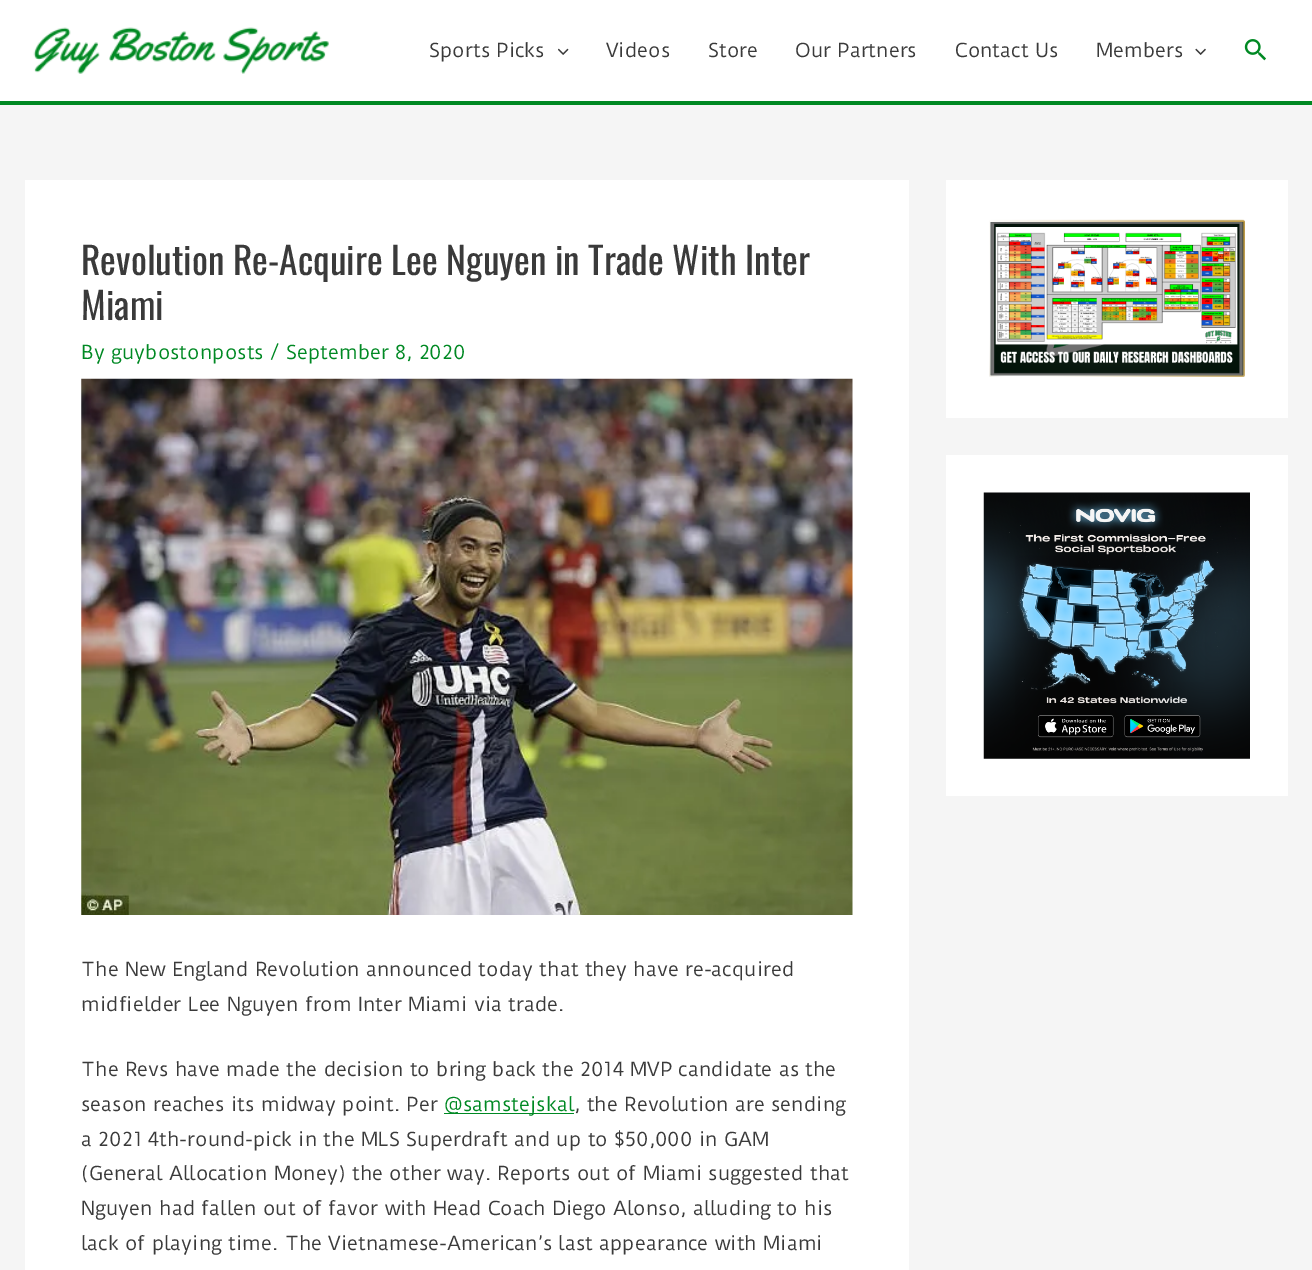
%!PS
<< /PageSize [1312 1270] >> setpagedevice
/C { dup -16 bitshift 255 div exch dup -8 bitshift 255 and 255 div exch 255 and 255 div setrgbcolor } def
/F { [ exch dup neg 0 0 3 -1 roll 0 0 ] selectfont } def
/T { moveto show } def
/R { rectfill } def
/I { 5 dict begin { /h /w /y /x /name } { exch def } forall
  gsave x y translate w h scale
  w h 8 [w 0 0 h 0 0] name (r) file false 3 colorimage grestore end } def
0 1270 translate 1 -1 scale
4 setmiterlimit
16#F5F5F5 C
0 0 1312 1270 R
16#FFFFFF C
0 0 1312 101 R
16#008923 C
0 101 1312 4 R
(1.rgb) 33 27 296 47 I
/DuruSans-Regular 18.75 F
16#3A3A3A C
(Sports Picks) 429 57 T
(2.rgb) 558 48 11 7 I
(Videos) 606 57 T
(Store) 708 57 T
(Our Partners) 795 57 T
(Contact Us) 955 57 T
(Members) 1096 57 T
(3.rgb) 1195 48 11 7 I
(4.rgb) 1244 39 22 22 I
16#FFFFFF C
25 180 884 1090 R
/Oswald-Regular 37.5 F
16#3A3A3A C
(Revolution Re-Acquire Lee Nguyen in Trade With Inter) 81 275 T
(Miami) 81 320 T
/DuruSans-Regular 18.75 F
16#008923 C
(By guybostonposts / September 8, 2020) 81 359 T
(5.rgb) 81 378 772 537 I
16#3A3A3A C
(The New England Revolution announced today that they have re-acquired) 81 976 T
(midfielder Lee Nguyen from Inter Miami via trade.) 81 1011 T
(The Revs have made the decision to bring back the 2014 MVP candidate as the) 81 1076 T
(season reaches its midway point. Per) 81 1111 T
16#008923 C
444 1113 130 1 R
(@samstejskal) 444 1111 T
16#3A3A3A C
(, the Revolution are sending) 574 1111 T
(a 2021 4th-round-pick in the MLS Superdraft and up to $50,000 in GAM) 81 1146 T
(\(General Allocation Money\) the other way. Reports out of Miami suggested that) 81 1180 T
(Nguyen had fallen out of favor with Head Coach Diego Alonso, alluding to his) 81 1215 T
(lack of playing time. The Vietnamese-American’s last appearance with Miami) 81 1250 T
16#FFFFFF C
946 180 342 238 R
(6.rgb) 989 219 256 158 I
946 455 342 341 R
(7.rgb) 983 492 267 267 I
showpage
